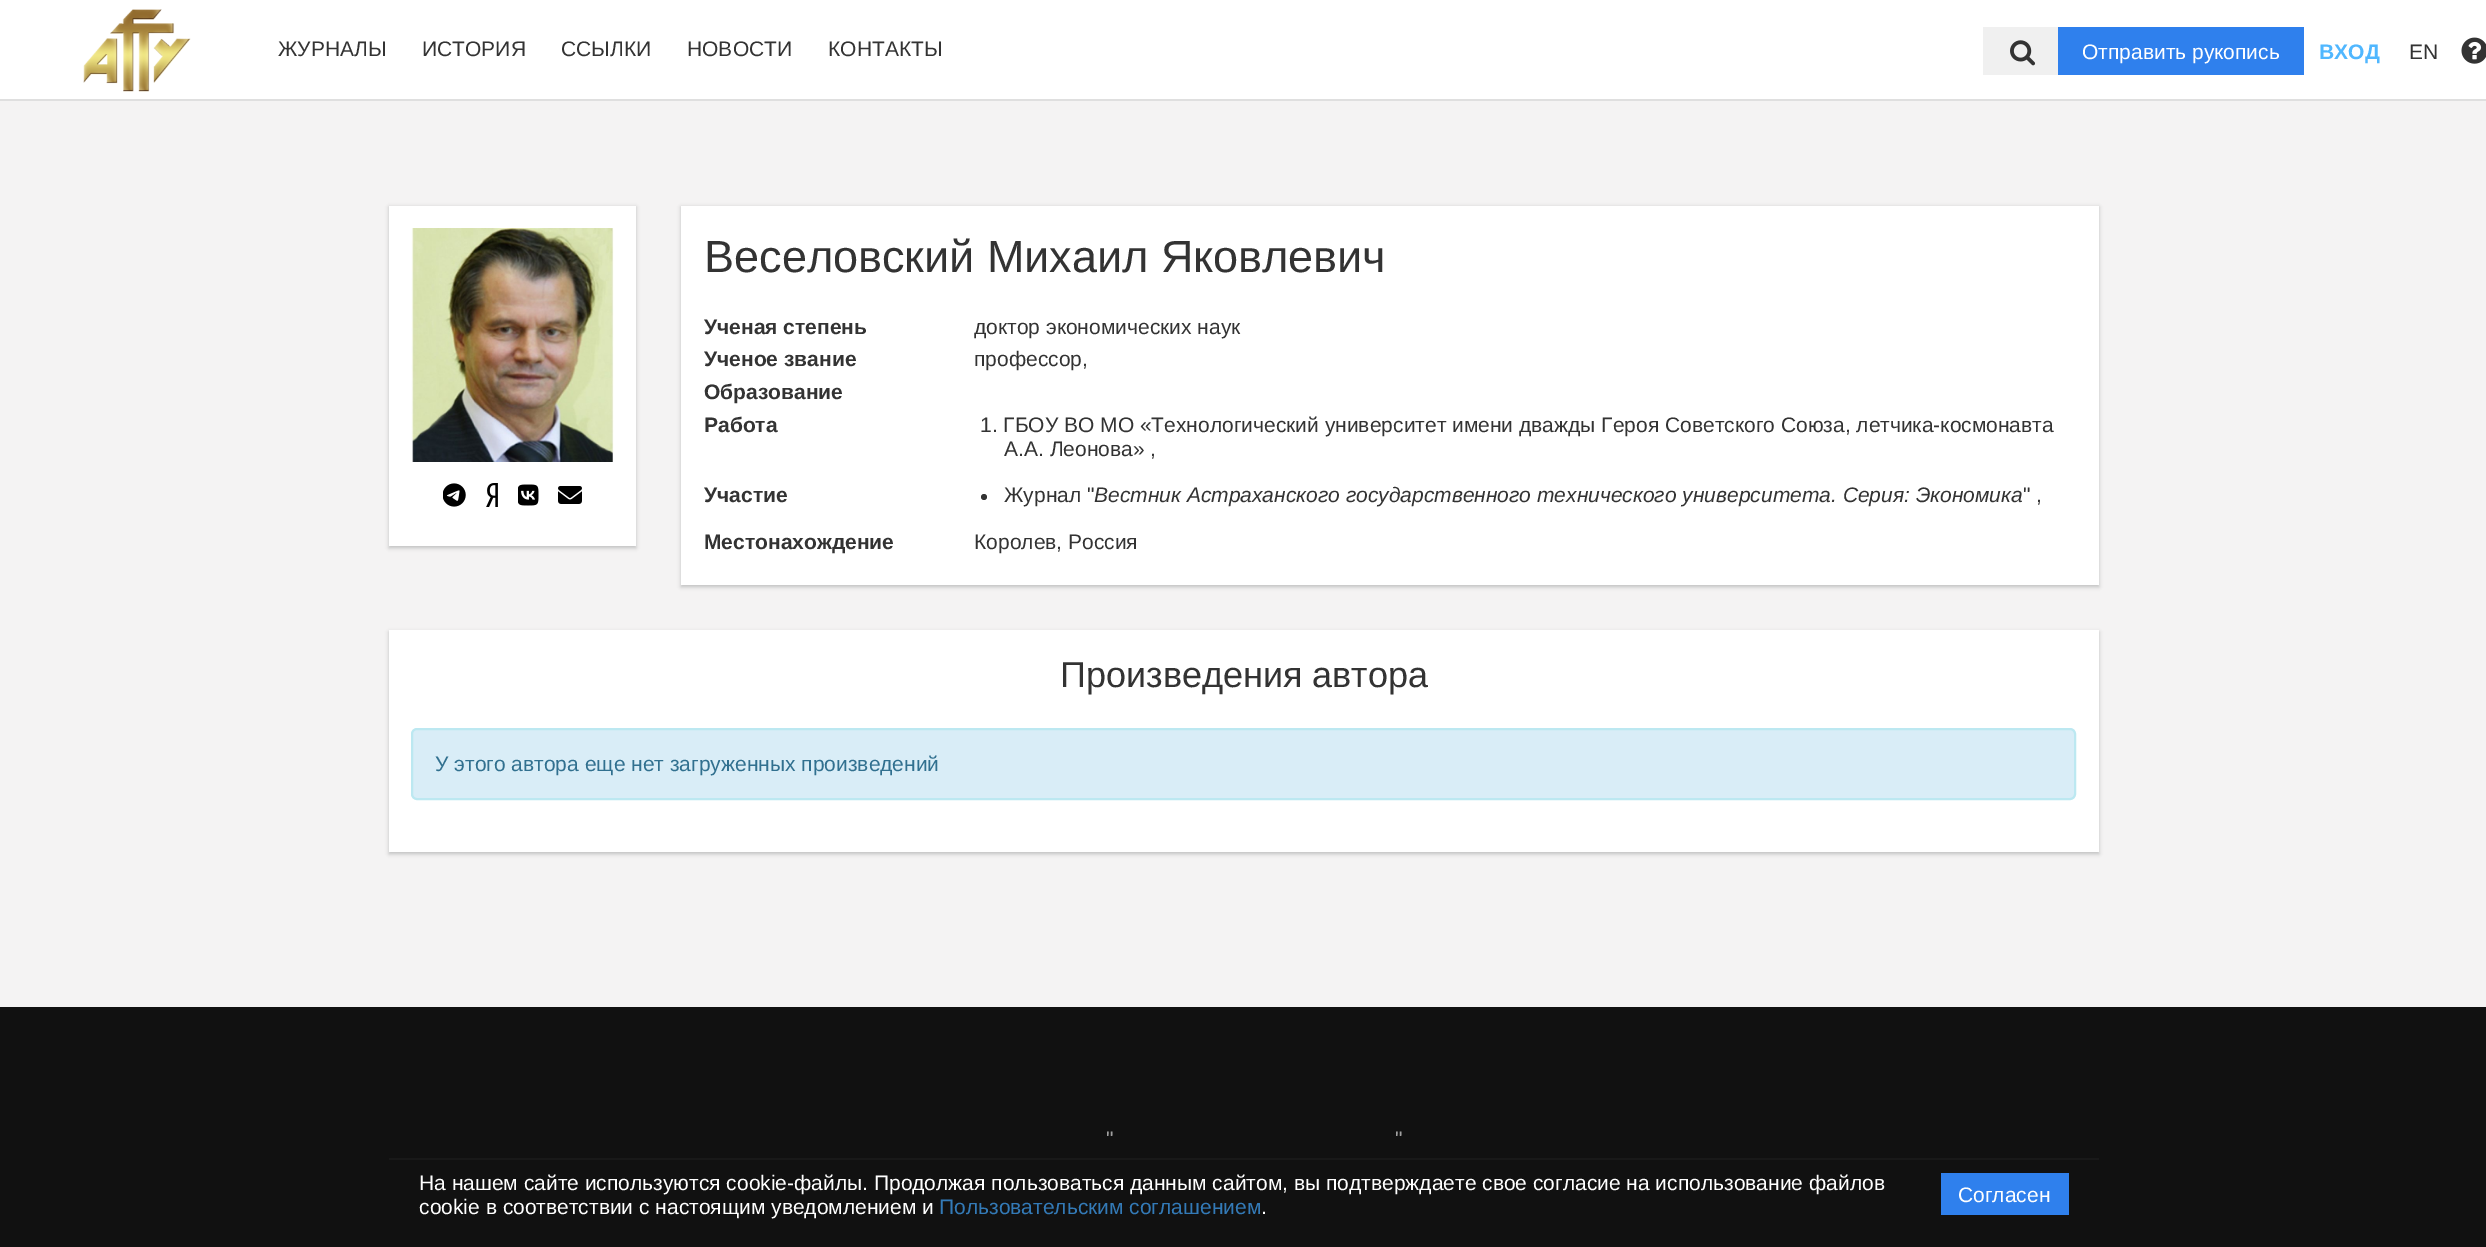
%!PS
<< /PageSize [2486 1247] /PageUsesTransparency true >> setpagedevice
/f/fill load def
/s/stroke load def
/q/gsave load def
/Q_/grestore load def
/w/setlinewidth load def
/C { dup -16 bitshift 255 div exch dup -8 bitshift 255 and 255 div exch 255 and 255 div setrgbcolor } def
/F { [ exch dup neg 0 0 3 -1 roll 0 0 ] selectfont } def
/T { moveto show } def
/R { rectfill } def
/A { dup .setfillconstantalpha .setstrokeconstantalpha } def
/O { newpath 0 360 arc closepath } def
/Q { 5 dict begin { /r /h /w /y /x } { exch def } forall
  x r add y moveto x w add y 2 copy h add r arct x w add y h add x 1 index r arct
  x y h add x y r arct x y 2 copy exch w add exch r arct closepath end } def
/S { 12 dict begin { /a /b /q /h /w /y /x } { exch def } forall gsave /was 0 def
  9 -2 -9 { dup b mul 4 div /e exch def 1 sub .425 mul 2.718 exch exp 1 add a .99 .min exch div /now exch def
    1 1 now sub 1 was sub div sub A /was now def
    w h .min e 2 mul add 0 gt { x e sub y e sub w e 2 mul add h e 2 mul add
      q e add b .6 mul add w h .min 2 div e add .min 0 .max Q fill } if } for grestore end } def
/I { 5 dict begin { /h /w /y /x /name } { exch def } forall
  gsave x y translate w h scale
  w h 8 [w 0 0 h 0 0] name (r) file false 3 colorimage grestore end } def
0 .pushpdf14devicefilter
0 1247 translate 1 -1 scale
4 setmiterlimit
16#F4F3F3 C
0 0 2486 1247 R
16#FFFFFF C
0 0 2486 99 R
16#DFDFDF C
0 99 2486 2 R
(1.rgb) 83 9 108 83 I
/LiberationSans-Regular 21 F
16#333333 C
(ЖУРНАЛЫ) 278 56 T
(ИСТОРИЯ) 422 56 T
(ССЫЛКИ) 561 56 T
(НОВОСТИ) 687 56 T
(КОНТАКТЫ) 828 56 T
16#F0F0F0 C
1983 27 75 48 R
(2.rgb) 2010 40 26 26 I
16#2F80ED C
2058 27 246 48 R
16#FFFFFF C
(Отправить рукопись) 2082 59 T
/LiberationSans-Bold 21 F
16#50B7FF C
(ВХОД) 2319 59 T
/LiberationSans-Regular 21 F
16#333333 C
(EN) 2409 59 T
(3.rgb) 2461 37 25 27 I
16#BFBFBF C
389 207 247 341 0 2 1 S
16#FFFFFF C
389 206 247 340 R
(4.rgb) 411 228 203 234 I
(5.rgb) 443 483 23 24 I
(6.rgb) 486 483 12 24 I
(7.rgb) 518 484 21 22 I
(8.rgb) 558 486 24 18 I
16#BFBFBF C
681 207 1418 380 0 2 1 S
16#FFFFFF C
681 206 1418 379 R
/LiberationSans-Regular 45 F
16#333333 C
(Веселовский Михаил Яковлевич) 704 272 T
/LiberationSans-Bold 21 F
(Ученая степень) 704 334 T
/LiberationSans-Regular 21 F
(доктор экономических наук) 974 334 T
/LiberationSans-Bold 21 F
(Ученое звание) 704 366 T
/LiberationSans-Regular 21 F
(профессор,) 974 366 T
/LiberationSans-Bold 21 F
(Образование) 704 399 T
(Работа) 704 432 T
/LiberationSans-Regular 21 F
(1. ГБОУ ВО МО «Технологический университет имени дважды Героя Советского Союза, летчика-космонавта) 980 432 T
(А.А. Леонова» ,) 1004 456 T
/LiberationSans-Bold 21 F
(Участие) 704 502 T
984 497 3 O f
/LiberationSans-Regular 21 F
(Журнал ") 1004 502 T
/LiberationSans-Italic 21 F
(Вестник Астраханского государственного технического университета. Серия: Экономика) 1094 502 T
/LiberationSans-Regular 21 F
(" ,) 2023 502 T
/LiberationSans-Bold 21 F
(Местонахождение) 704 549 T
/LiberationSans-Regular 21 F
(Королев, Россия) 974 549 T
16#BFBFBF C
389 632 1710 222 0 2 1 S
16#FFFFFF C
389 630 1710 222 R
/LiberationSans-Regular 36 F
16#333333 C
(Произведения автора) 1060 687 T
16#D9EDF7 C
412 729 1663 70 5 Q q f Q_
16#BCE8F1 C
2 w
s
/LiberationSans-Regular 21 F
16#31708F C
(У этого автора еще нет загруженных произведений) 435 771 T
16#111111 C
0 1007 2486 240 R
16#A0A0A0 C
(") 1106 1146 T
(") 1395 1146 T
16#333333 C
389 1158 1710 2 R
0.8 A
16#121212 C
389 1158 1710 2 R
1 A
16#FFFFFF C
(На нашем сайте используются cookie-файлы. Продолжая пользоваться данным сайтом, вы подтверждаете свое согласие на использование файлов) 419 1190 T
(cookie в соответствии с настоящим уведомлением и) 419 1214 T
16#337AB7 C
(Пользовательским соглашением) 939 1214 T
16#FFFFFF C
(.) 1261 1214 T
16#2F80ED C
1941 1173 128 42 R
16#FFFFFF C
(Согласен) 1958 1202 T
.poppdf14devicefilter showpage
